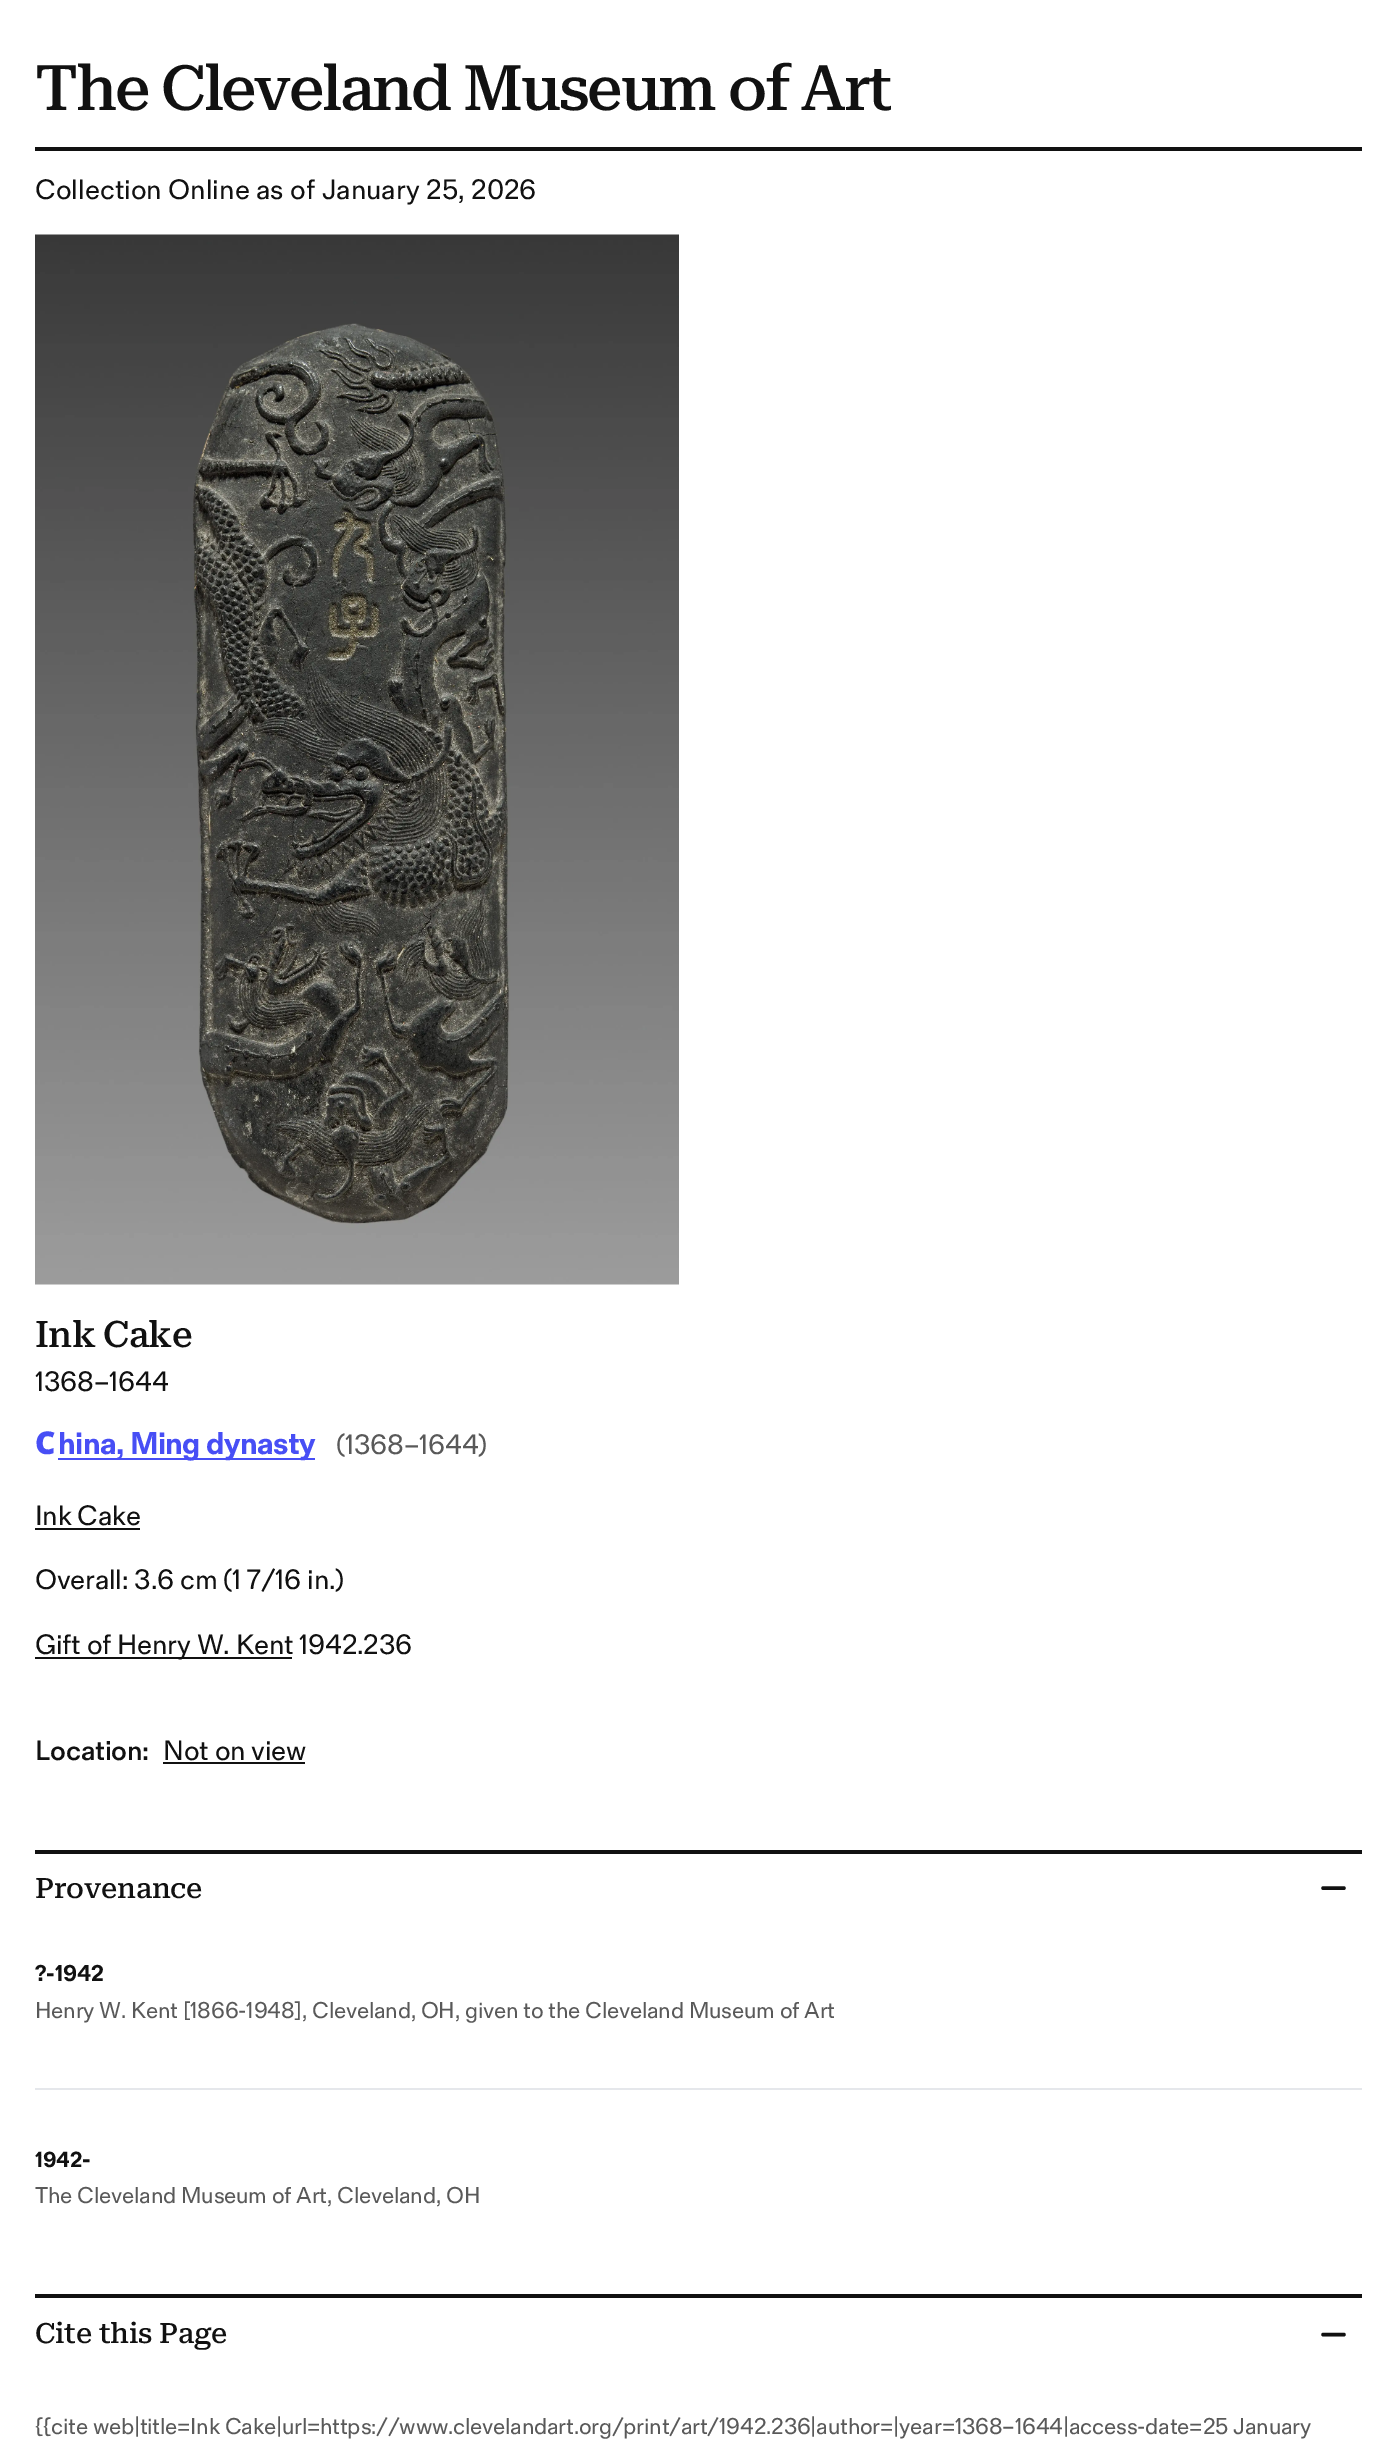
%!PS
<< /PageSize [1395 2453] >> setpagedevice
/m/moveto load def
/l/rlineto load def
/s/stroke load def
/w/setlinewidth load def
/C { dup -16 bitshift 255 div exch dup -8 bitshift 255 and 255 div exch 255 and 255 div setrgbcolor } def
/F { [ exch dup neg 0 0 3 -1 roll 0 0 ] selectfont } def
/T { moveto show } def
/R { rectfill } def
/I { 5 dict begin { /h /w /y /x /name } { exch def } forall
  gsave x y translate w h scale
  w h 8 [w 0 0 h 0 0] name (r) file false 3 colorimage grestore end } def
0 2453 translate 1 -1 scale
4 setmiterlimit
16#FFFFFF C
0 0 1395 2453 R
16#111111 C
35 147 1327 4 R
/RobotoSerif-Medium 63 F
35 110 m -2.2 0 (The Cleveland Museum of Art) ashow
/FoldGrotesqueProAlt-Regular 28 F
(Collection Online as of January 25, 2026) 35 199 T
(1.rgb) 35 234 644 1051 I
/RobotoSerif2-Medium 36.75 F
35 1347 m -.75 0 (Ink Cake) ashow
/FoldGrotesqueProAlt-Regular 28 F
35 1391 m -.25 0 (1368–1644) ashow
/NotoSans-Black 31.5 F
16#474EF5 C
35 1454 m -.6 0 (C) ashow
58 1458 257 2 R
/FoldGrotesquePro-Bold 31.5 F
58 1454 m -.6 0 (hina, Ming dynasty) ashow
/FoldGrotesqueProAlt-Regular 28 F
16#595959 C
336 1454 m -.25 0 (\(1368–1644\)) ashow
/FoldGrotesquePro-Regular 28 F
16#111111 C
35 1525 m -.25 0 (Ink Cake) ashow
35 1528 105 2 R
/FoldGrotesqueProAlt-Regular 28 F
35 1589 m -.25 0 (Overall: 3.6 cm \(1 7/16 in.\)) ashow
35 1657 257 2 R
/FoldGrotesquePro-Regular 28 F
35 1654 m -.25 0 (Gift of Henry W. Kent) ashow
/FoldGrotesqueProAlt-Regular 28 F
299 1654 m -.25 0 (1942.236) ashow
/FoldGrotesquePro-Medium 28 F
35 1760 m -.25 0 (Location:) ashow
/FoldGrotesquePro-Regular 28 F
163 1760 m -.25 0 (Not on view) ashow
163 1762 142 2 R
35 1850 1327 4 R
/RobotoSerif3-Medium 28 F
35 1898 m -.25 0 (Provenance) ashow
3.5 w
1 setlinecap
1 setlinejoin
1323 1888 m 21 0 l s
16#E5E7EB C
35 2088 1327 2 R
/FoldGrotesqueProAlt-Bold 22.75 F
16#111111 C
35 1981 m -.23 0 (?-1942) ashow
/FoldGrotesqueProAlt-Regular 22.75 F
16#595959 C
35 2018 m -.23 0 (Henry W. Kent [1866-1948], Cleveland, OH, given to the Cleveland Museum of Art) ashow
/FoldGrotesquePro-Bold 22.75 F
16#111111 C
35 2167 m -.23 0 (1942-) ashow
/FoldGrotesquePro-Regular 22.75 F
16#595959 C
35 2203 m -.23 0 (The Cleveland Museum of Art, Cleveland, OH) ashow
16#111111 C
35 2294 1327 4 R
/RobotoSerif3-Medium 28 F
35 2343 m -.25 0 (Cite this Page) ashow
1323 2334.5 m 21 0 l s
/FoldGrotesqueProAlt-Regular 22.75 F
16#595959 C
35 2434 m -.23 0 ({{cite web|title=Ink Cake|url=https://www.clevelandart.org/print/art/1942.236|author=|year=1368–1644|access-date=25 January) ashow
showpage
